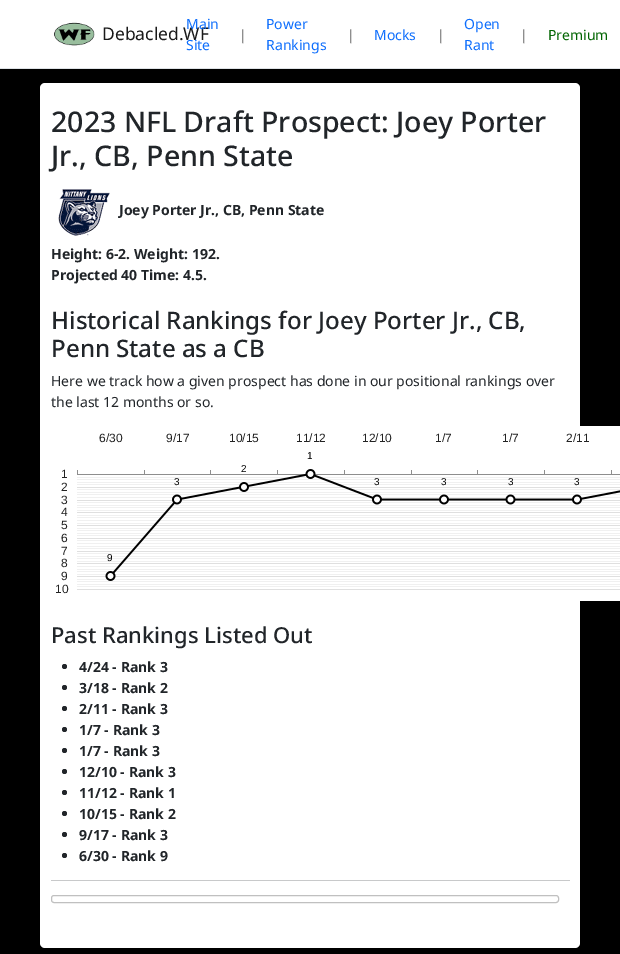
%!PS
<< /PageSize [620 954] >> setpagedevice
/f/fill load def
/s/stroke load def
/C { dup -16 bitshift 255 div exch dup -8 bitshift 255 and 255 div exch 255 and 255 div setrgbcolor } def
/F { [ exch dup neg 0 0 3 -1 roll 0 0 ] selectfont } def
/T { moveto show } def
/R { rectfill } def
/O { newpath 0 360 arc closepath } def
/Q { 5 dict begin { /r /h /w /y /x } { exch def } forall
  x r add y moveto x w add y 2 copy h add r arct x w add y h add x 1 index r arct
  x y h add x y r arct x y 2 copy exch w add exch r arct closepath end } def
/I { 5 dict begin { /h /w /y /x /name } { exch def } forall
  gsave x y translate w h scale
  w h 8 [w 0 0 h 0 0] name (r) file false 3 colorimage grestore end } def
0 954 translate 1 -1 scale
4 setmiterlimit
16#000000 C
0 0 620 954 R
16#FFFFFF C
0 0 620 68 R
16#DEE2E6 C
0 68 620 1 R
(1.rgb) 54 22 41 24 I
/NotoSans-Regular 17.5 F
16#1A1A1A C
(Debacled.WF) 102 40 T
/NotoSans-Regular 14 F
16#0D6EFD C
(Main) 186 29 T
(Site) 186 50 T
16#666666 C
(|) 239 40 T
16#0D6EFD C
(Power) 266 29 T
(Rankings) 266 50 T
16#666666 C
(|) 347 40 T
16#0D6EFD C
(Mocks) 374 40 T
16#666666 C
(|) 437 40 T
16#0D6EFD C
(Open) 464 29 T
(Rant) 464 50 T
16#666666 C
(|) 520 40 T
16#006400 C
(Premium) 548 40 T
16#FFFFFF C
40 83 540 865 5 Q f
/NotoSans-Medium 28.5 F
16#212529 C
(2023 NFL Draft Prospect: Joey Porter) 51 132 T
(Jr., CB, Penn State) 51 166 T
(2.rgb) 58 189 52 47 I
/NotoSans-Bold 14 F
(Joey Porter Jr., CB, Penn State) 119 215 T
(Height: 6-2. Weight: 192.) 51 259 T
(Projected 40 Time: 4.5.) 51 280 T
/NotoSans-Medium 24.1 F
(Historical Rankings for Joey Porter Jr., CB,) 51 329 T
(Penn State as a CB) 51 357 T
/NotoSans-Regular 14 F
(Here we track how a given prospect has done in our positional rankings over) 51 386 T
(the last 12 months or so.) 51 407 T
(3.rgb) 77 426 543 175 I
/LiberationSans-Regular 12 F
16#232323 C
(6/30) 99 442 T
(9/17) 166 442 T
(10/15) 229 442 T
(11/12) 296 442 T
(12/10) 362 442 T
(1/7) 435 442 T
(1/7) 502 442 T
(2/11) 566 442 T
/LiberationSans-Regular 10 F
16#000000 C
(1) 307 459 T
/LiberationSans-Regular 12 F
16#232323 C
(1) 61 478 T
/LiberationSans-Regular 10 F
16#000000 C
(2) 241 472 T
/LiberationSans-Regular 12 F
16#232323 C
(2) 61 491 T
/LiberationSans-Regular 10 F
16#000000 C
(3) 174 485 T
(3) 374 485 T
(3) 441 485 T
(3) 508 485 T
(3) 574 485 T
/LiberationSans-Regular 12 F
16#232323 C
(3) 61 504 T
(4) 61 516 T
(5) 61 529 T
(6) 61 542 T
(7) 61 555 T
(8) 61 567 T
/LiberationSans-Regular 10 F
16#000000 C
(9) 107 561 T
/LiberationSans-Regular 12 F
16#232323 C
(9) 61 580 T
(10) 55 593 T
/NotoSans-Medium 22 F
16#212529 C
(Past Rankings Listed Out) 51 643 T
64.5 666.5 2.5 O f
/NotoSans-Bold 14 F
(4/24 - Rank 3) 79 672 T
64.5 687.5 2.5 O f
(3/18 - Rank 2) 79 693 T
64.5 708.5 2.5 O f
(2/11 - Rank 3) 79 714 T
64.5 729.5 2.5 O f
(1/7 - Rank 3) 79 735 T
64.5 750.5 2.5 O f
(1/7 - Rank 3) 79 756 T
64.5 771.5 2.5 O f
(12/10 - Rank 3) 79 777 T
64.5 792.5 2.5 O f
(11/12 - Rank 1) 79 798 T
64.5 813.5 2.5 O f
(10/15 - Rank 2) 79 819 T
64.5 834.5 2.5 O f
(9/17 - Rank 3) 79 840 T
64.5 855.5 2.5 O f
(6/30 - Rank 9) 79 861 T
16#C8C9CA C
51 880 519 1 R
16#C0C0C0 C
51.5 895.5 507 7 2.5 Q s
showpage
